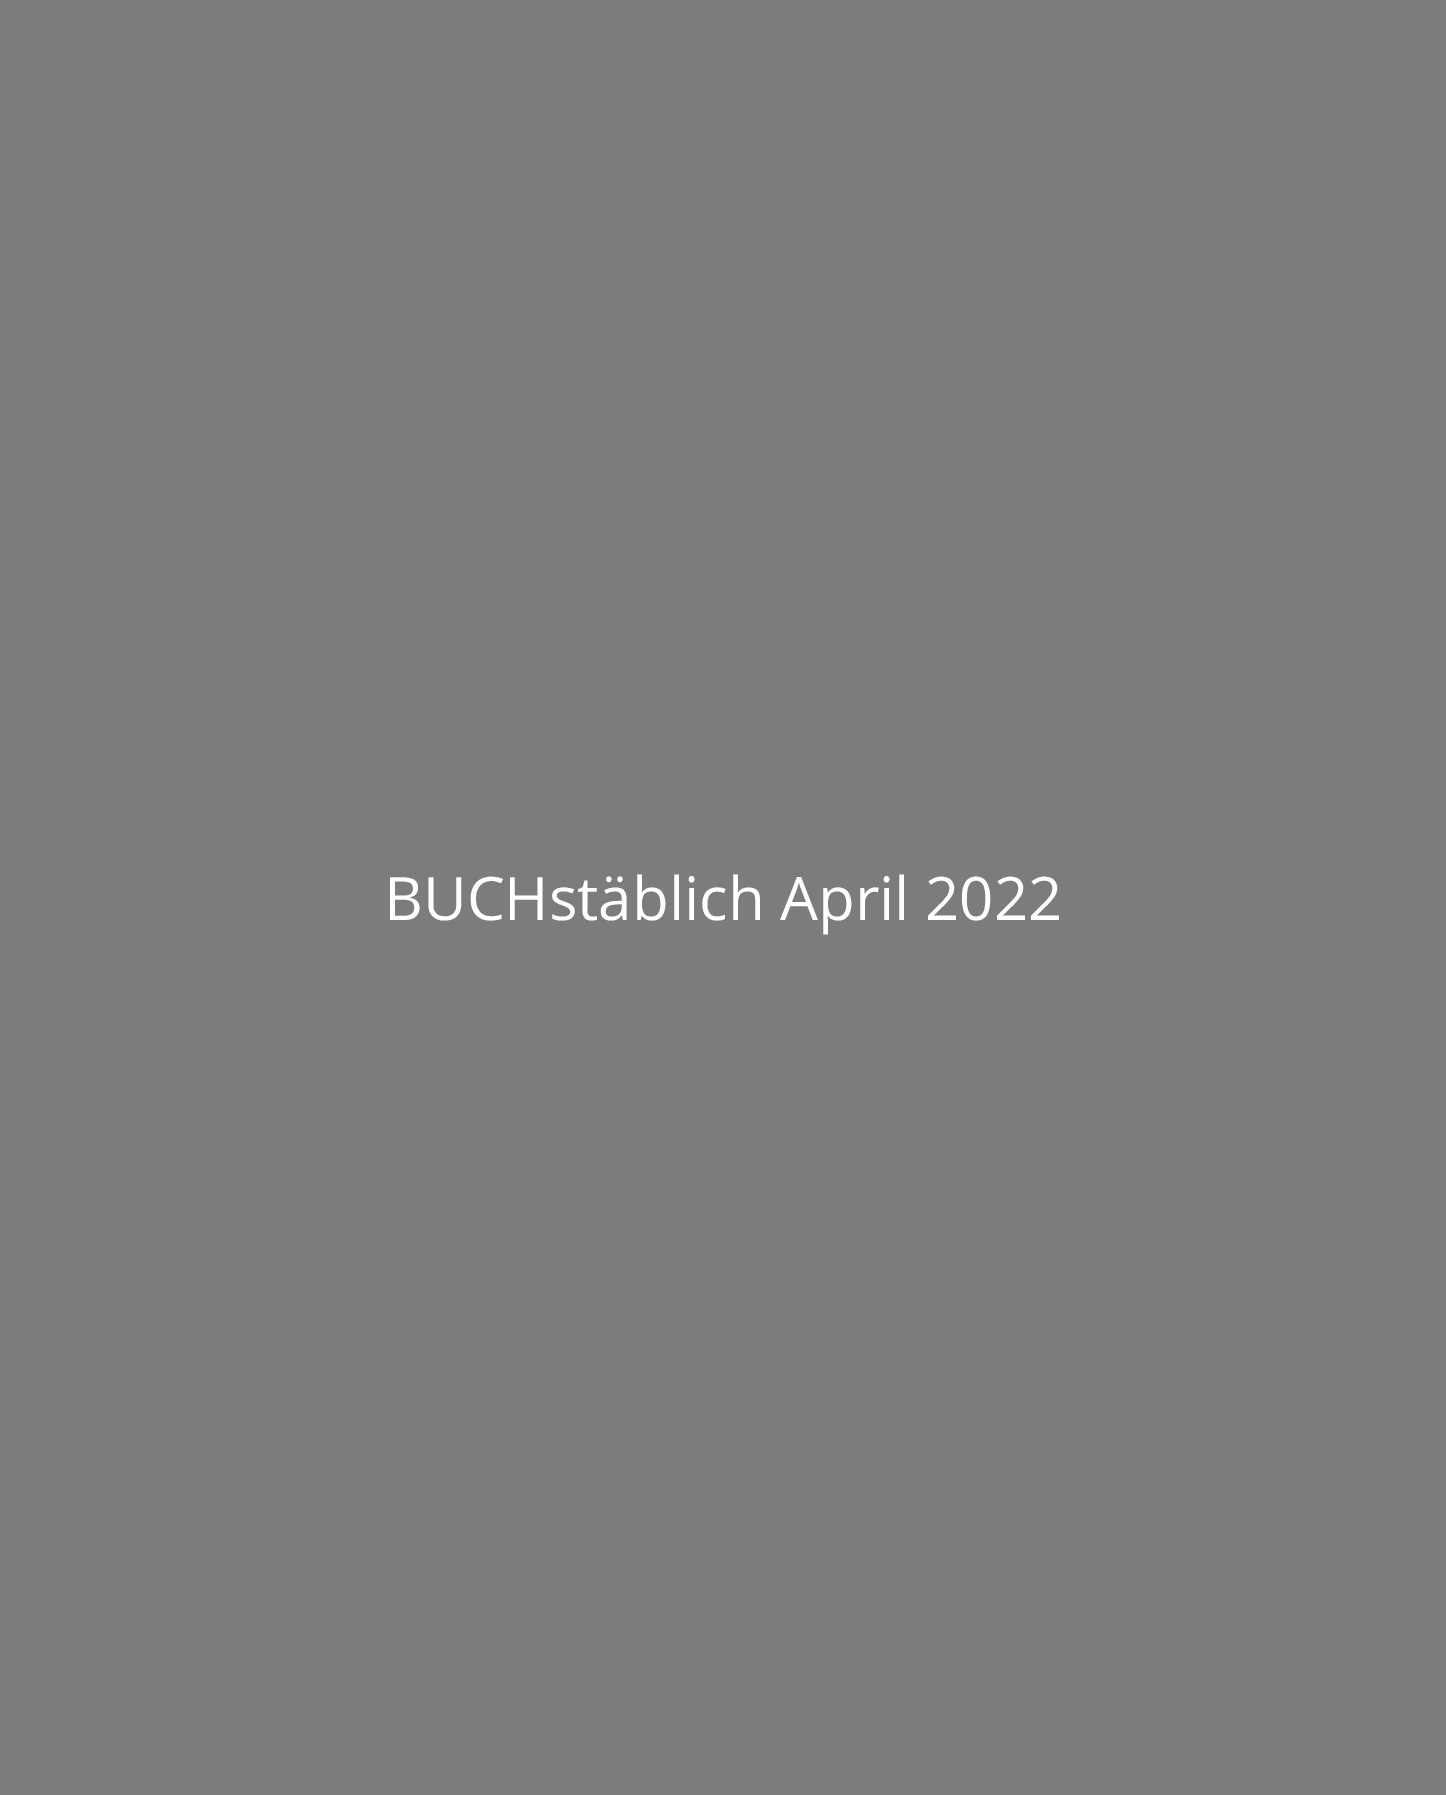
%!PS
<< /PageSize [1446 1795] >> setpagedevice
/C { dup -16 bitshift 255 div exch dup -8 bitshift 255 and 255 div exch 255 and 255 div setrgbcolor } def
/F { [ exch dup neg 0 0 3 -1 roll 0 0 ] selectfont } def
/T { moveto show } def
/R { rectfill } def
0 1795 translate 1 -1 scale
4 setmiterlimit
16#7C7C7C C
0 0 1446 1795 R
/OpenSans-Regular 60 F
16#FFFFFF C
(BUCHstäblich April 2022) 384 920 T
showpage
